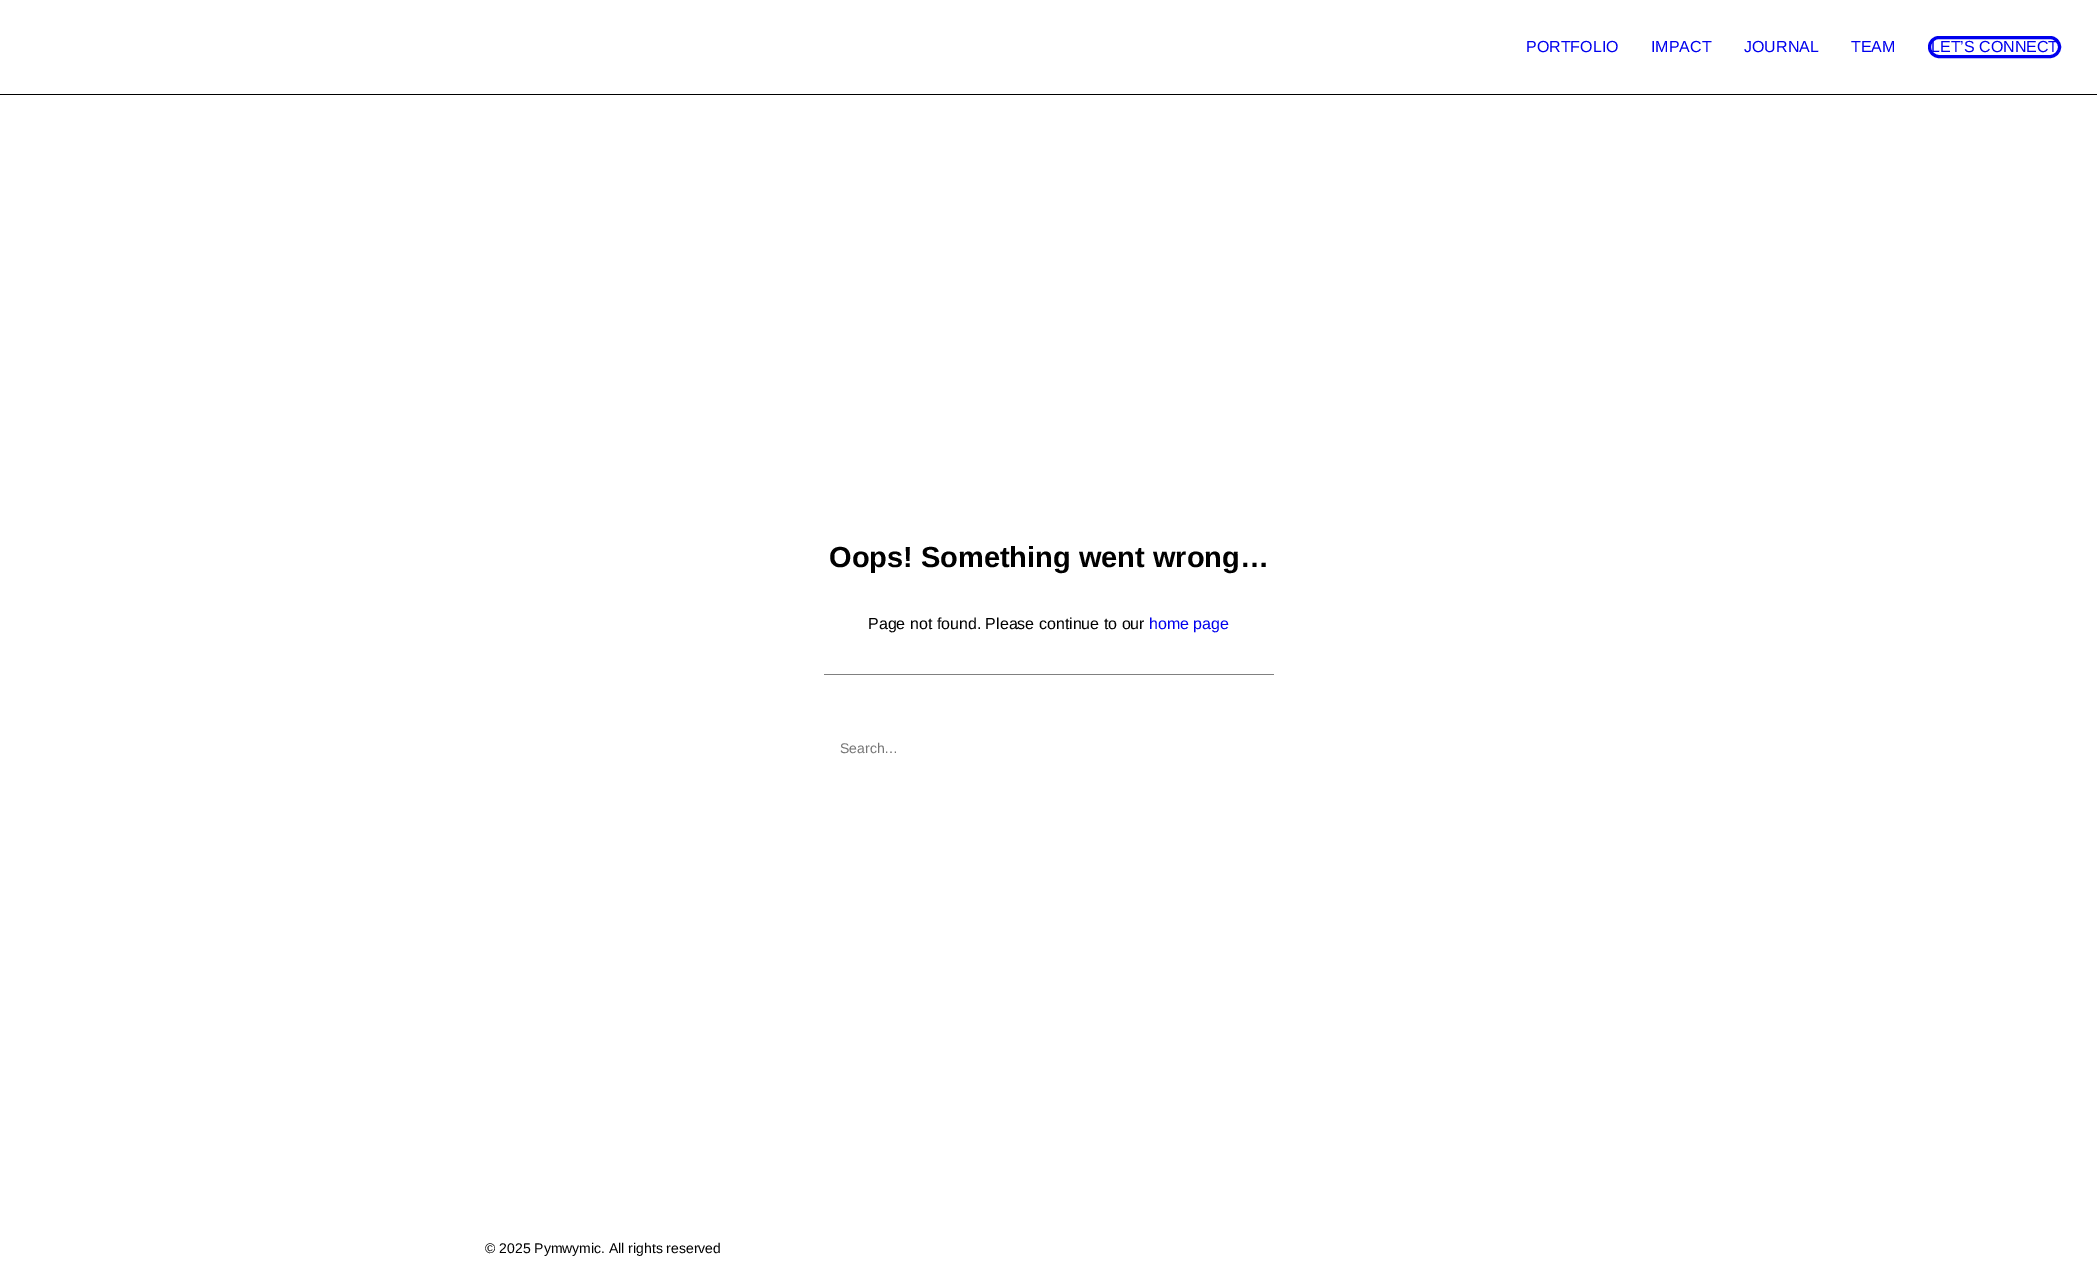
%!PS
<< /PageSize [2097 1283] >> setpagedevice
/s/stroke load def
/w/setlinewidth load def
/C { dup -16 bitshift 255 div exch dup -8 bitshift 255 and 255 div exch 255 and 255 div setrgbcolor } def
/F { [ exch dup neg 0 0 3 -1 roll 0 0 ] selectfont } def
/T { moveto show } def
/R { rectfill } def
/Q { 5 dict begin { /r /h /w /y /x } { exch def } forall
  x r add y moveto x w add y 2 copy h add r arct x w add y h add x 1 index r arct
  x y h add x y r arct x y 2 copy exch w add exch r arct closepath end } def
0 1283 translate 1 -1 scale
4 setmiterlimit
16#FFFFFF C
0 0 2097 1283 R
16#000000 C
0 94 2097 1 R
/LiberationSans-Regular 16 F
16#0000EE C
(PORTFOLIO) 1526 52 T
(IMPACT) 1651 52 T
(JOURNAL) 1744 52 T
(TEAM) 1851 52 T
3 w
1929.5 37.5 130 19 9.5 Q s
(LET’S CONNECT) 1931 52 T
/LiberationSans-Bold 29 F
16#000000 C
(Oops! Something went wrong…) 829 567 T
/LiberationSans-Regular 16 F
(Page not found. Please continue to our) 868 629 T
16#0000EE C
(home page) 1149 629 T
16#808080 C
824 674 450 1 R
/LiberationSans-Regular 14 F
16#757575 C
(Search…) 840 753 T
16#000000 C
(© 2025 Pymwymic. All rights reserved) 485 1253 T
showpage
